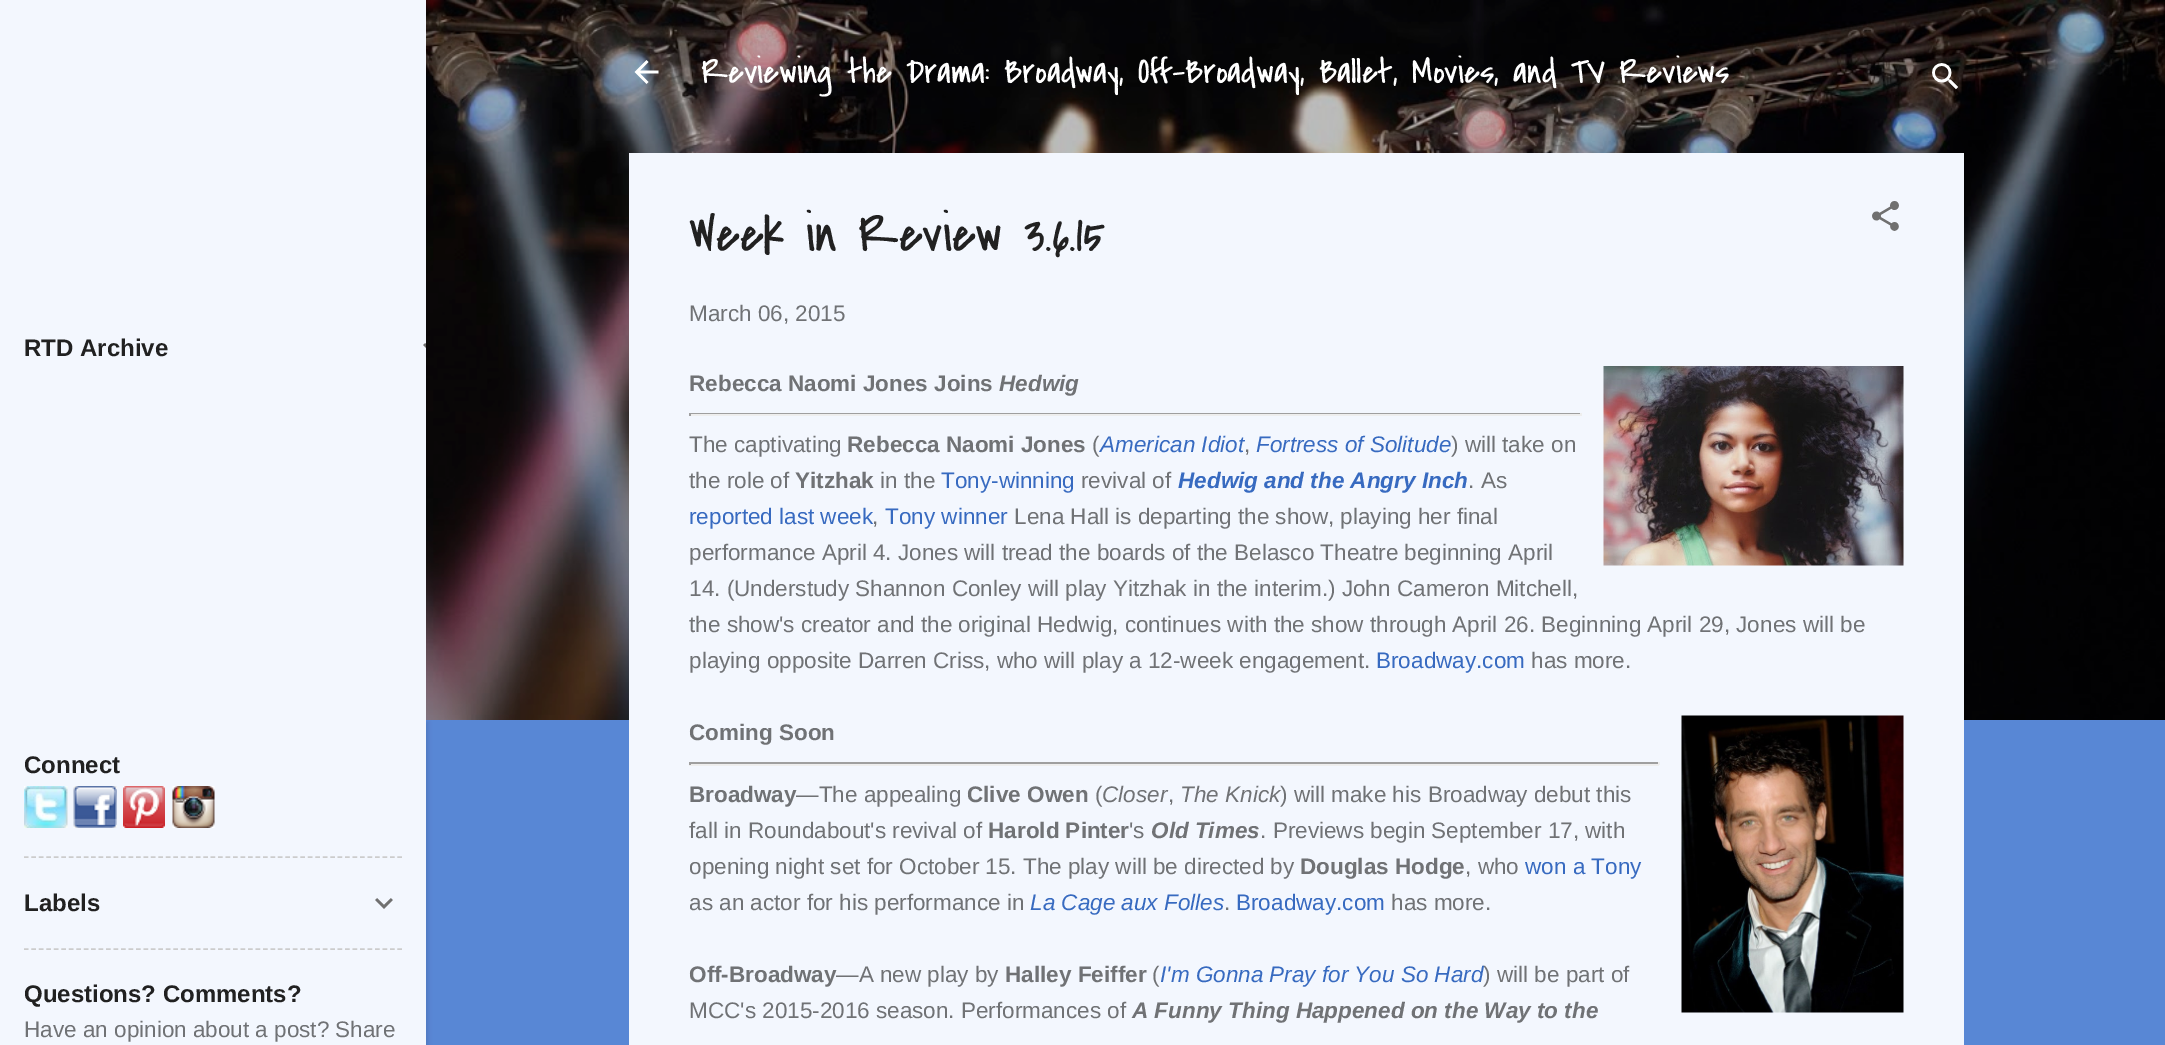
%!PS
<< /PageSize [2165 1045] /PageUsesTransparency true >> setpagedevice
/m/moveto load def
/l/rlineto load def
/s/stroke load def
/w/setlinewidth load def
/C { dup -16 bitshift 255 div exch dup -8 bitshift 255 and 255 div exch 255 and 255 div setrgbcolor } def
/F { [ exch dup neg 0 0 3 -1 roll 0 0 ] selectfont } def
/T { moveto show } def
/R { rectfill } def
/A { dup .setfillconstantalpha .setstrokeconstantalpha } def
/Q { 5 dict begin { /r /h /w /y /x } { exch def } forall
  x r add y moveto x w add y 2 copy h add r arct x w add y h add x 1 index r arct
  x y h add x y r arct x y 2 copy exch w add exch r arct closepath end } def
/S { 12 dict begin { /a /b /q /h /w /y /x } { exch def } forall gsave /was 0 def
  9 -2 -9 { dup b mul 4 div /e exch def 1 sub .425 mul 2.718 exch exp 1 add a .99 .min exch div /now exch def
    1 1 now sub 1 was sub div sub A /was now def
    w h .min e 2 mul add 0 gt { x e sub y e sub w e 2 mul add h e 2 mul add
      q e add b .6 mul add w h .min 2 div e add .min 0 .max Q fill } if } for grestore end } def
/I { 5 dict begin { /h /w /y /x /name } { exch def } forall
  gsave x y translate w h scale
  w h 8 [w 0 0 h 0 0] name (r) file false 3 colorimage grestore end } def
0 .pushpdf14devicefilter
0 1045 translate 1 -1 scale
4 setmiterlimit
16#5887D5 C
0 0 2165 1045 R
(7.rgb) 426 0 1739 720 I
16#000000 C
2 722 426 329 0 2 .1 S
16#F3F7FE C
0 0 426 1045 R
/LiberationSans-Bold 24 F
16#212121 C
(RTD Archive) 24 356 T
(1.rgb) 423 343 3 5 I
(Connect) 24 773 T
(2.rgb) 24 786 44 42 I
(3.rgb) 73 786 44 42 I
(4.rgb) 123 786 42 42 I
(5.rgb) 172 786 43 42 I
16#CCCCCC C
1.5 w
[4.5 2.97] 0 setdash
24 857 m 378 0 l s
16#212121 C
(Labels) 24 911 T
(6.rgb) 375 898 18 11 I
16#CCCCCC C
24 949 m 378 0 l s
16#212121 C
(Questions? Comments?) 24 1002 T
/LiberationSans-Regular 22.5 F
16#707275 C
(Have an opinion about a post? Share) 24 1037 T
(8.rgb) 634 60 25 24 I
/CoveredByYourGrace-Regular 36 F
16#FFFFFF C
(Reviewing the Drama: Broadway, Off-Broadway, Ballet, Movies, and TV Reviews) 701 83 T
(9.rgb) 1932 63 26 27 I
16#F3F7FE C
629 153 1335 892 R
/CoveredByYourGrace-Regular 54 F
16#212121 C
(Week in Review 3.6.15) 689 251 T
(10.rgb) 1872 201 27 30 I
/LiberationSans-Regular 22.5 F
16#707275 C
(March 06, 2015) 689 321 T
/LiberationSans-Bold 22.5 F
(Rebecca Naomi Jones Joins) 689 391 T
/LiberationSans-BoldItalic 22.5 F
(Hedwig) 999 391 T
(11.rgb) 1603 366 301 200 I
16#9F9F9F C
689 413 892 1 R
16#EEEEEE C
1580 413 2 3 R
689 414 892 2 R
16#9F9F9F C
689 413 2 3 R
/LiberationSans-Regular 22.5 F
16#707275 C
(The captivating) 689 452 T
/LiberationSans-Bold 22.5 F
(Rebecca Naomi Jones) 847 452 T
/LiberationSans-Regular 22.5 F
(\() 1092 452 T
/LiberationSans-Italic 22.5 F
16#376AC0 C
(American Idiot) 1100 452 T
/LiberationSans-Regular 22.5 F
16#707275 C
(,) 1244 452 T
/LiberationSans-Italic 22.5 F
16#376AC0 C
(Fortress of Solitude) 1256 452 T
/LiberationSans-Regular 22.5 F
16#707275 C
(\) will take on) 1451 452 T
(the role of) 689 488 T
/LiberationSans-Bold 22.5 F
(Yitzhak) 795 488 T
/LiberationSans-Regular 22.5 F
(in the) 880 488 T
16#376AC0 C
(Tony-winning) 941 488 T
16#707275 C
(revival of) 1081 488 T
/LiberationSans-BoldItalic 22.5 F
16#376AC0 C
(Hedwig and the Angry Inch) 1178 488 T
/LiberationSans-Regular 22.5 F
16#707275 C
(. As) 1468 488 T
16#376AC0 C
(reported last week) 689 524 T
16#707275 C
(,) 872 524 T
16#376AC0 C
(Tony winner) 885 524 T
16#707275 C
(Lena Hall is departing the show, playing her final) 1014 524 T
(performance April 4. Jones will tread the boards of the Belasco Theatre beginning April) 689 560 T
(14. \(Understudy Shannon Conley will play Yitzhak in the interim.\) John Cameron Mitchell,) 689 596 T
(the show's creator and the original Hedwig, continues with the show through April 26. Beginning April 29, Jones will be) 689 632 T
(playing opposite Darren Criss, who will play a 12-week engagement.) 689 668 T
16#376AC0 C
(Broadway.com) 1376 668 T
16#707275 C
(has more.) 1531 668 T
/LiberationSans-Bold 22.5 F
(Coming Soon) 689 740 T
(12.rgb) 1681 715 223 298 I
16#9F9F9F C
689 762 970 2 R
16#EEEEEE C
1658 762 2 3 R
689 764 970 2 R
16#9F9F9F C
689 762 2 3 R
16#707275 C
(Broadway) 689 802 T
/LiberationSans-Regular 22.5 F
(—The appealing) 796 802 T
/LiberationSans-Bold 22.5 F
(Clive Owen) 967 802 T
/LiberationSans-Regular 22.5 F
(\() 1095 802 T
/LiberationSans-Italic 22.5 F
(Closer) 1102 802 T
/LiberationSans-Regular 22.5 F
(,) 1168 802 T
/LiberationSans-Italic 22.5 F
(The Knick) 1180 802 T
/LiberationSans-Regular 22.5 F
(\) will make his Broadway debut this) 1280 802 T
(fall in Roundabout's revival of) 689 838 T
/LiberationSans-Bold 22.5 F
(Harold Pinter) 988 838 T
/LiberationSans-Regular 22.5 F
('s) 1129 838 T
/LiberationSans-BoldItalic 22.5 F
(Old Times) 1151 838 T
/LiberationSans-Regular 22.5 F
(. Previews begin September 17, with) 1260 838 T
(opening night set for October 15. The play will be directed by) 689 874 T
/LiberationSans-Bold 22.5 F
(Douglas Hodge) 1300 874 T
/LiberationSans-Regular 22.5 F
(, who) 1465 874 T
16#376AC0 C
(won a Tony) 1525 874 T
16#707275 C
(as an actor for his performance in) 689 910 T
/LiberationSans-Italic 22.5 F
16#376AC0 C
(La Cage aux Folles) 1030 910 T
/LiberationSans-Regular 22.5 F
16#707275 C
(.) 1224 910 T
16#376AC0 C
(Broadway.com) 1236 910 T
16#707275 C
(has more.) 1391 910 T
/LiberationSans-Bold 22.5 F
(Off-Broadway) 689 982 T
/LiberationSans-Regular 22.5 F
(—A new play by) 836 982 T
/LiberationSans-Bold 22.5 F
(Halley Feiffer) 1005 982 T
/LiberationSans-Regular 22.5 F
(\() 1152 982 T
/LiberationSans-Italic 22.5 F
16#376AC0 C
(I'm Gonna Pray for You So Hard) 1160 982 T
/LiberationSans-Regular 22.5 F
16#707275 C
(\) will be part of) 1483 982 T
(MCC's 2015-2016 season. Performances of) 689 1018 T
/LiberationSans-BoldItalic 22.5 F
(A Funny Thing Happened on the Way to the) 1132 1018 T
.poppdf14devicefilter showpage
